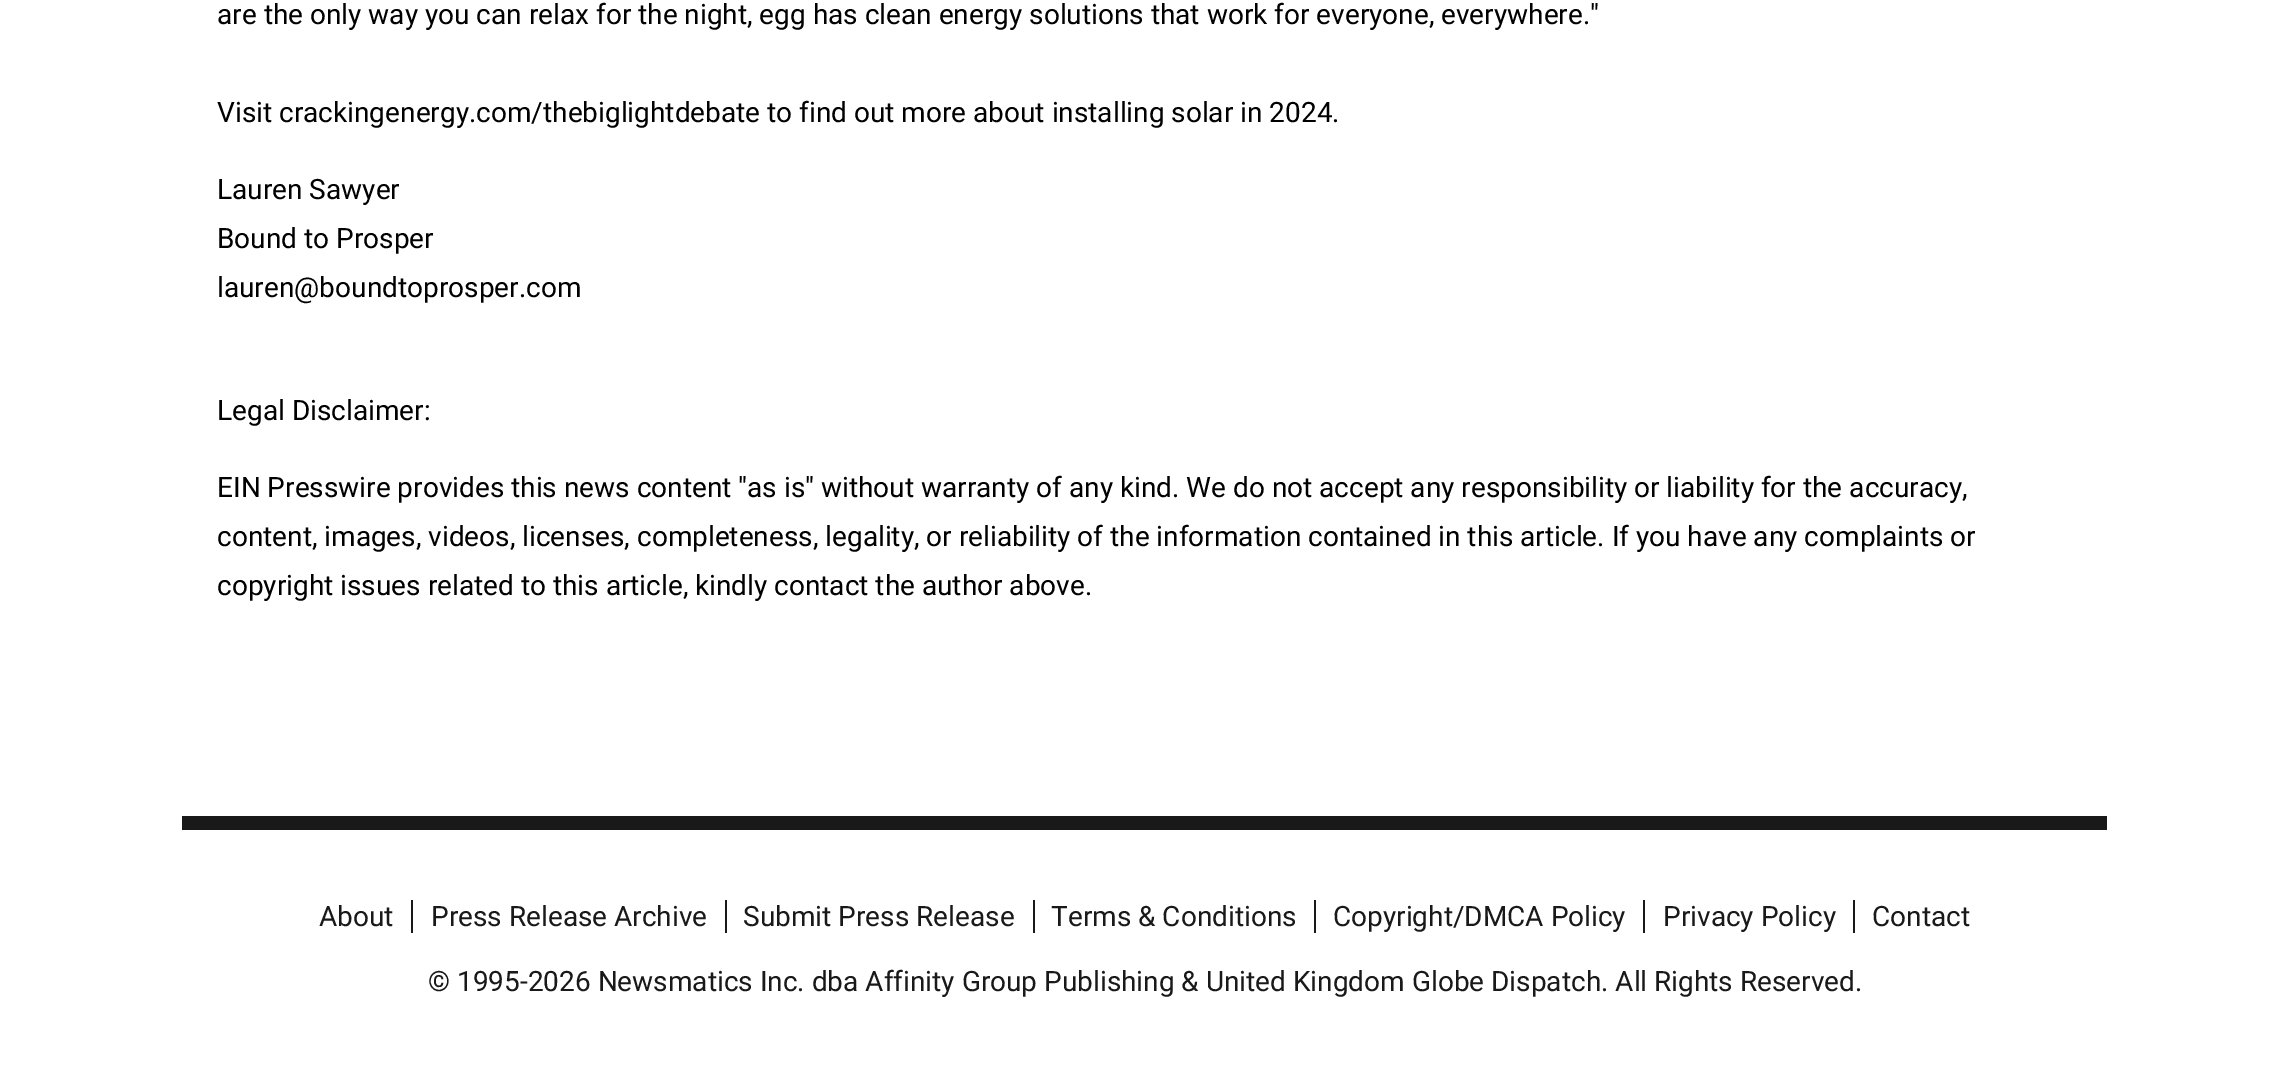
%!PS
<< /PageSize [2288 1068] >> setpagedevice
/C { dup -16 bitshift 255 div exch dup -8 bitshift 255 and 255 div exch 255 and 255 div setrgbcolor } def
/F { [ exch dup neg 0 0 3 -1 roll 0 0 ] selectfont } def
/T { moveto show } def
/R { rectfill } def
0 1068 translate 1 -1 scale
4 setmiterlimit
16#FFFFFF C
0 0 2288 1068 R
/Roboto-Regular 28 F
16#000000 C
(are the only way you can relax for the night, egg has clean energy solutions that work for everyone, everywhere.") 217 24 T
(Visit crackingenergy.com/thebiglightdebate) 217 122 T
(to find out more about installing solar in 2024.) 767 122 T
(Lauren Sawyer) 217 199 T
(Bound to Prosper) 217 248 T
(lauren@boundtoprosper.com) 217 297 T
(Legal Disclaimer:) 217 420 T
(EIN Presswire provides this news content "as is" without warranty of any kind. We do not accept any responsibility or liability for the accuracy,) 217 497 T
(content, images, videos, licenses, completeness, legality, or reliability of the information contained in this article. If you have any complaints or) 217 546 T
(copyright issues related to this article, kindly contact the author above.) 217 595 T
16#191919 C
182 816 1925 14 R
411 900 2 33 R
(About) 319 926 T
725 900 2 33 R
(Press Release Archive) 431 926 T
1033 900 2 33 R
(Submit Press Release) 743 926 T
1314 900 2 33 R
(Terms & Conditions) 1051 926 T
1643 900 2 33 R
(Copyright/DMCA Policy) 1333 926 T
1853 900 2 33 R
(Privacy Policy) 1663 926 T
(Contact) 1872 926 T
(© 1995-2026 Newsmatics Inc. dba Affinity Group Publishing & United Kingdom Globe Dispatch. All Rights Reserved.) 428 991 T
showpage
